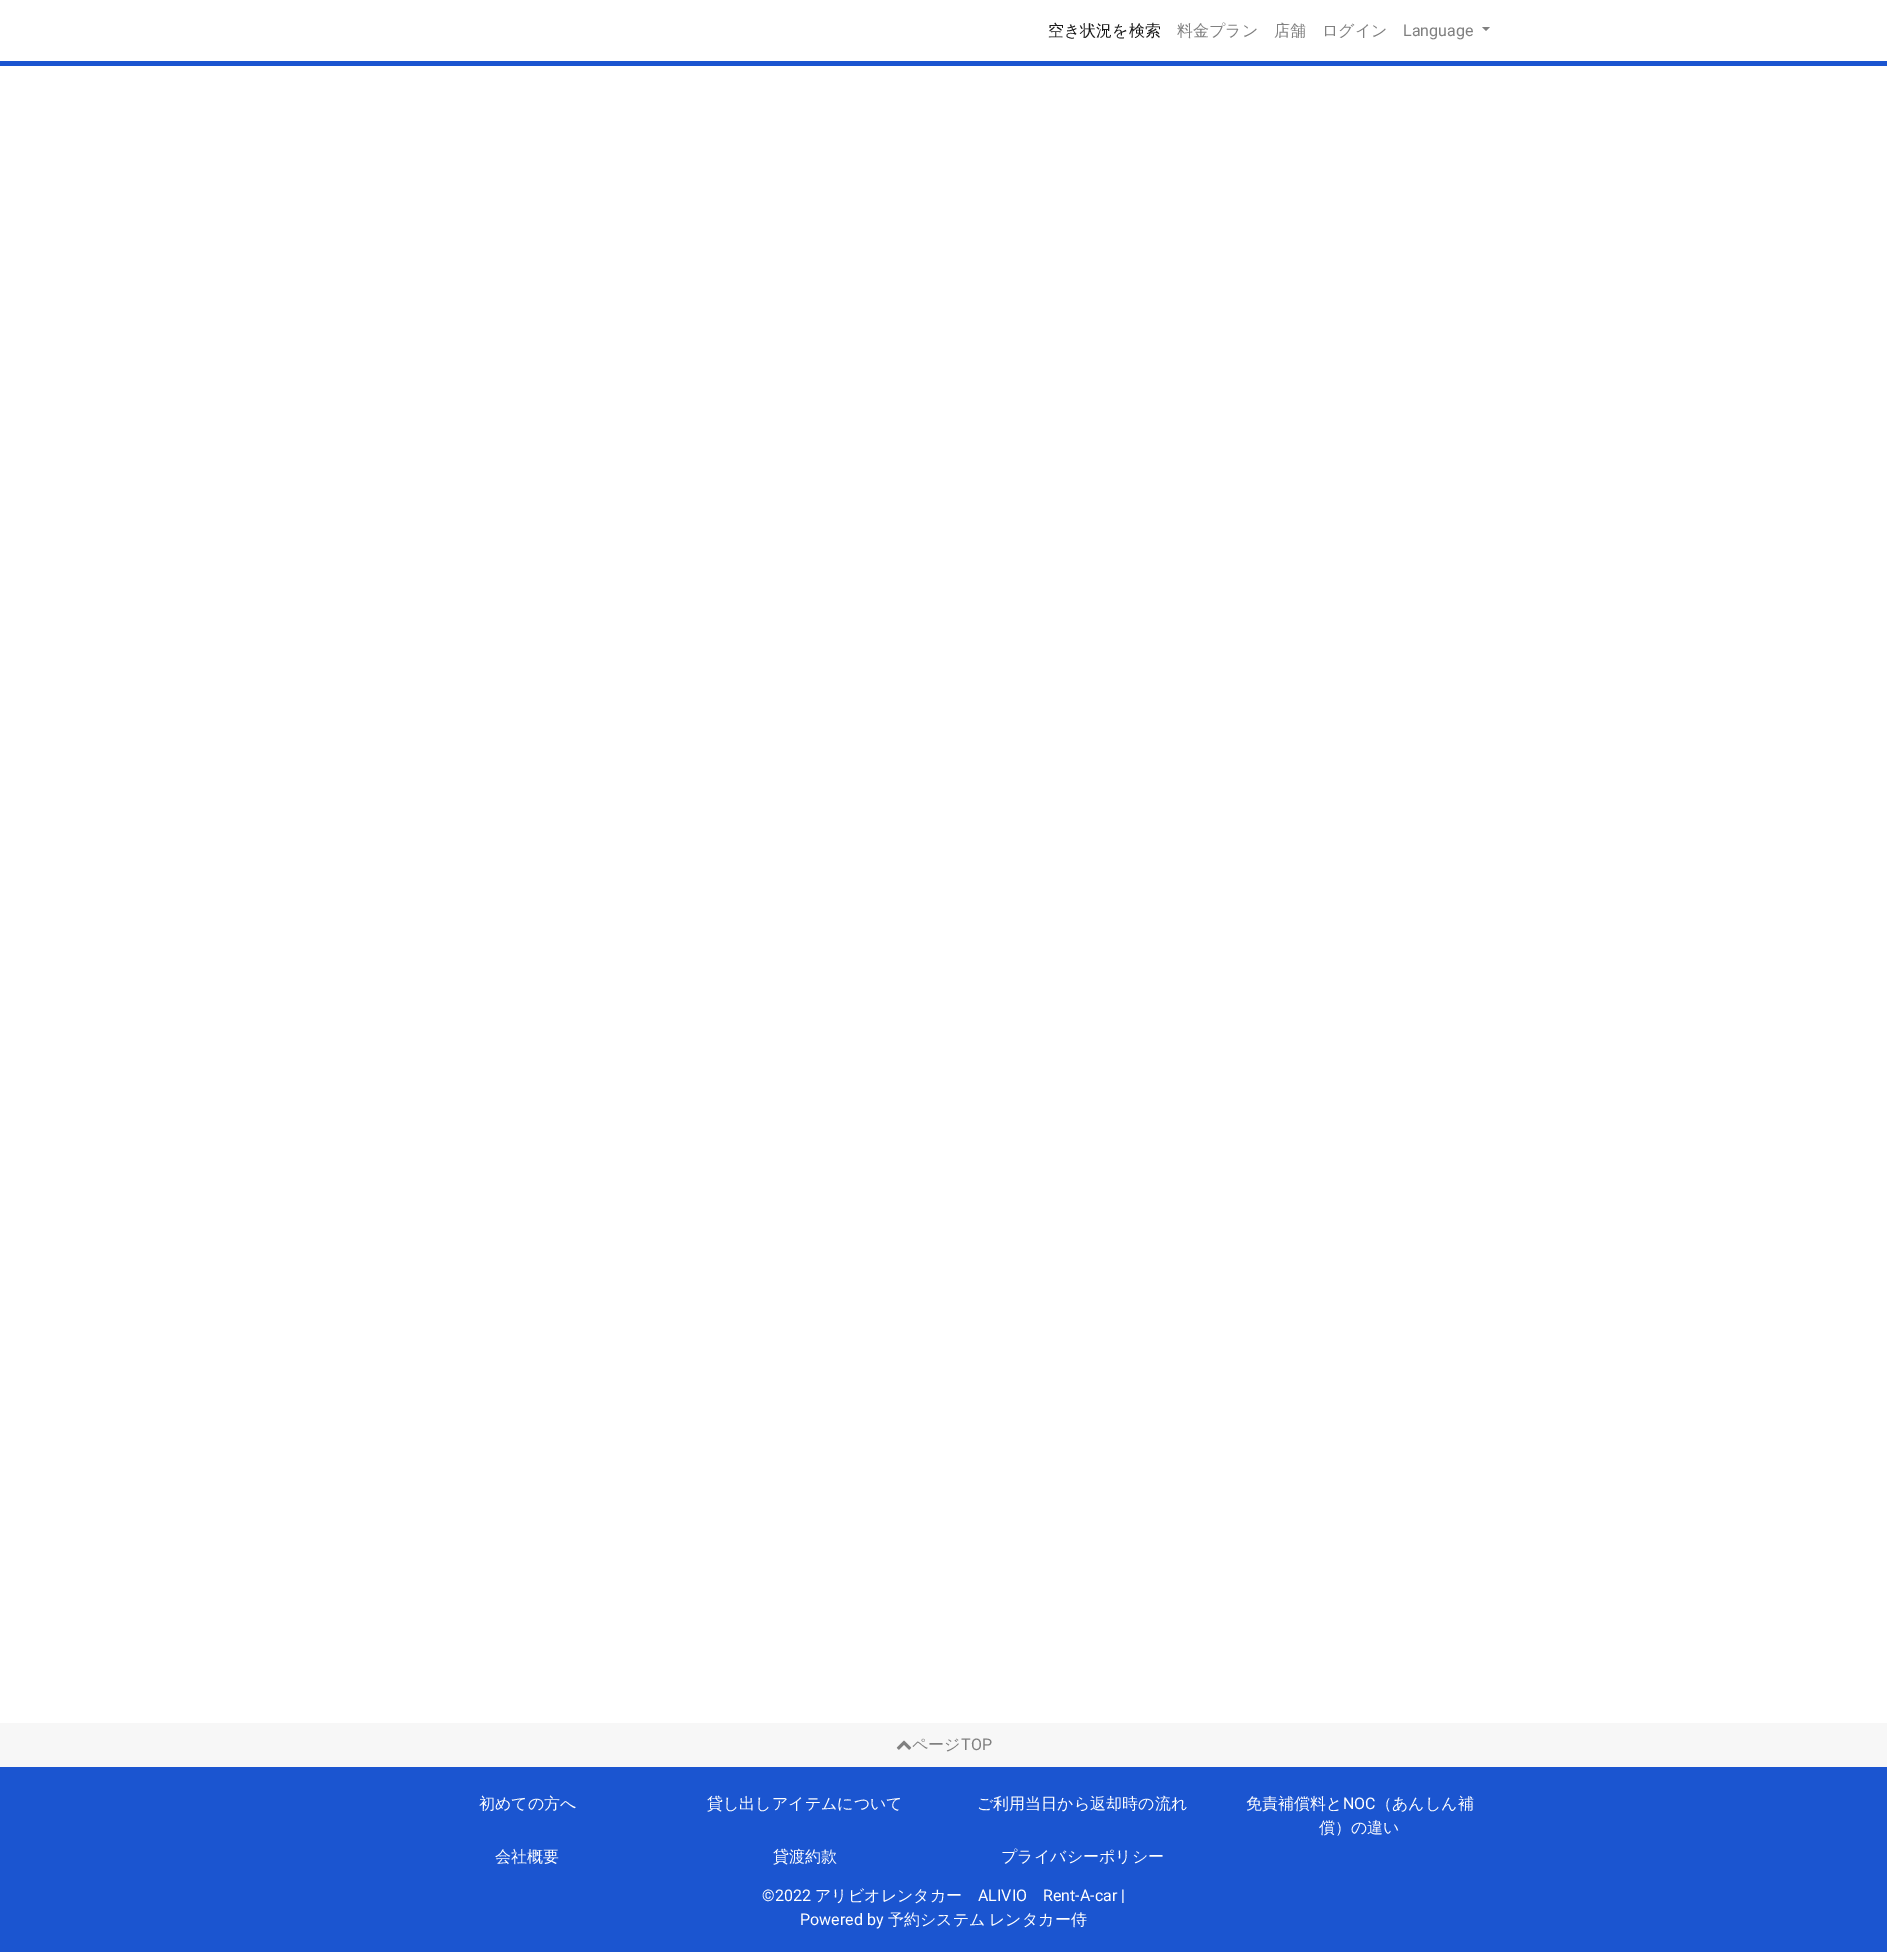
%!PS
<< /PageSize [1887 1952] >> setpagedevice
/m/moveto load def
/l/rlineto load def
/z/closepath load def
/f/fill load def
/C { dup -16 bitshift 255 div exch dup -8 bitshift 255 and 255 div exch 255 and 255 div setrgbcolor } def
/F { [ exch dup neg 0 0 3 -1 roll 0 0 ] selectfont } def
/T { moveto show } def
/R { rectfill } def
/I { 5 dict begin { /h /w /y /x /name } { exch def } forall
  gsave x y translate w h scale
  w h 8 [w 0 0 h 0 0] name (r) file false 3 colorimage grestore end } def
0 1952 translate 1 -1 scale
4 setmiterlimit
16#FFFFFF C
0 0 1887 1952 R
16#1B55D0 C
0 61 1887 5 R
/WenQuanYiZenHei-Medium 16 F
16#1A1A1A C
(空き状況を検索) 1048 36 T
16#808080 C
(料金プラン) 1177 36 T
(店舗) 1274 36 T
(ログイン) 1322 36 T
/Roboto-Regular 16 F
(Language) 1403 36 T
1482 27 m 8 0 l -4 4 l z f
16#F7F7F7 C
0 1723 1887 44 R
(1.rgb) 896 1740 16 10 I
/WenQuanYiZenHei-Medium 16 F
16#808080 C
(ページ) 912 1750 T
/Roboto-Regular 16 F
(TOP) 961 1750 T
16#1B55D0 C
0 1767 1887 185 R
/WenQuanYiZenHei-Medium 16 F
16#FFFFFF C
(初めての方へ) 479 1809 T
(貸し出しアイテムについて) 707 1809 T
(ご利用当日から返却時の流れ) 977 1809 T
(免責補償料と) 1246 1809 T
/Roboto-Regular 16 F
(NOC) 1343 1809 T
/WenQuanYiZenHei-Medium 16 F
(（あんしん補) 1376 1809 T
(償）の違い) 1319 1833 T
(会社概要) 495 1862 T
(貸渡約款) 773 1862 T
(プライバシーポリシー) 1001 1862 T
/Roboto-Regular 16 F
(©2022) 762 1901 T
/WenQuanYiZenHei-Medium 16 F
(アリビオレンタカー) 815 1901 T
/Roboto-Regular 16 F
(ALIVIO) 978 1901 T
(Rent-A-car |) 1043 1901 T
(Powered by) 800 1925 T
/WenQuanYiZenHei-Medium 16 F
(予約システム) 888 1925 T
(レンタカー侍) 989 1925 T
showpage
